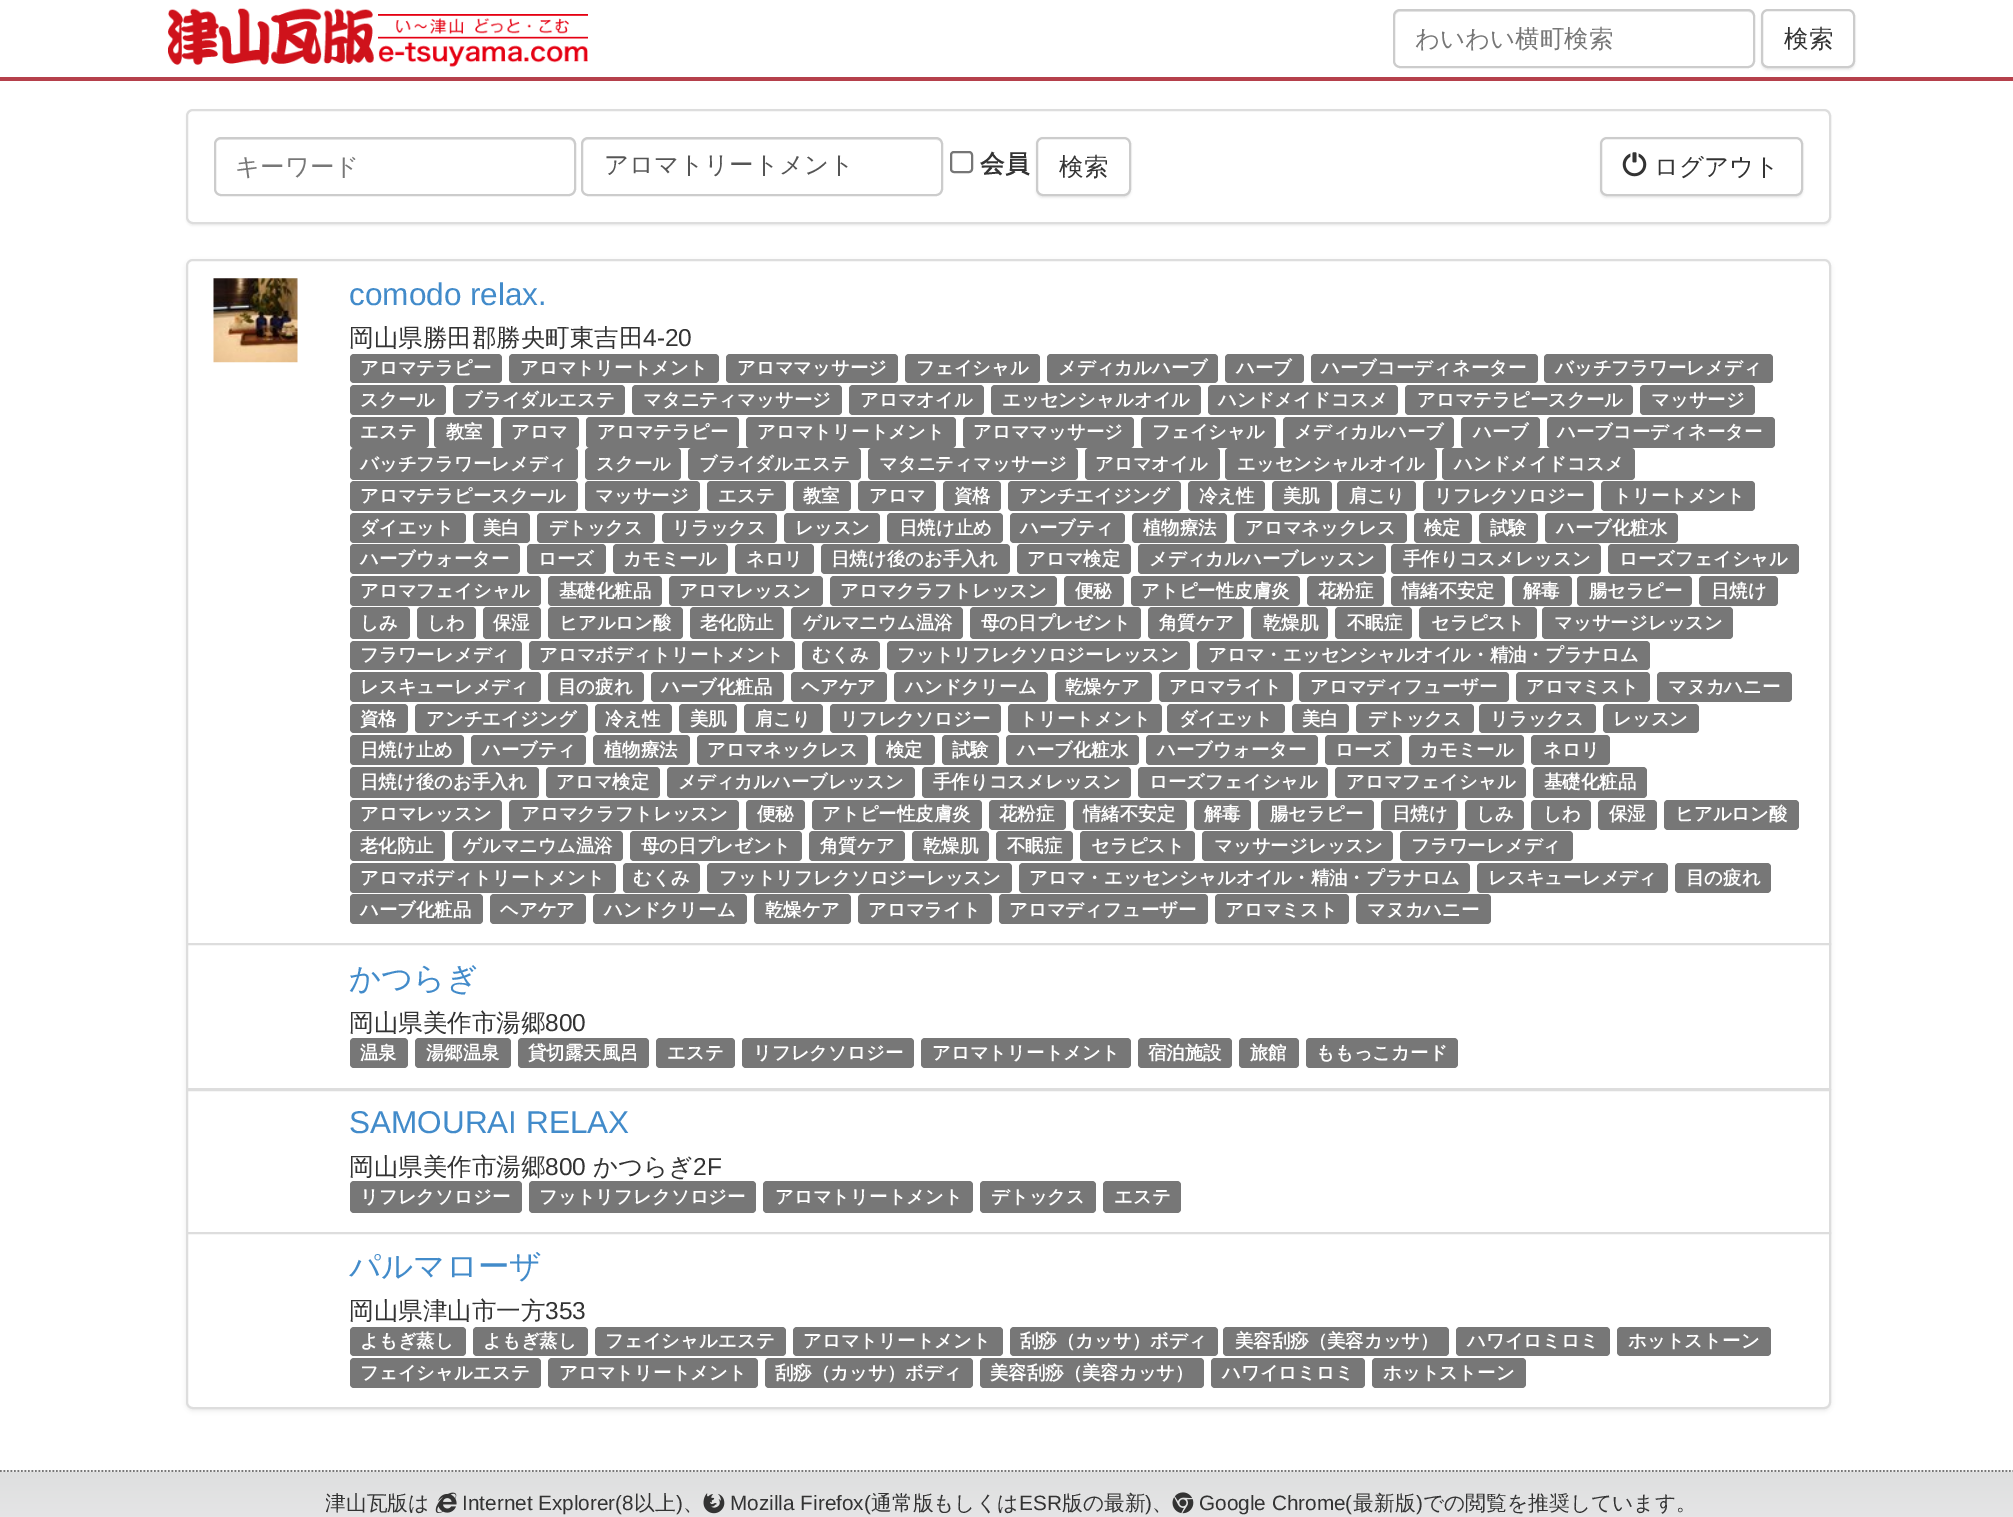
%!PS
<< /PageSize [2013 1517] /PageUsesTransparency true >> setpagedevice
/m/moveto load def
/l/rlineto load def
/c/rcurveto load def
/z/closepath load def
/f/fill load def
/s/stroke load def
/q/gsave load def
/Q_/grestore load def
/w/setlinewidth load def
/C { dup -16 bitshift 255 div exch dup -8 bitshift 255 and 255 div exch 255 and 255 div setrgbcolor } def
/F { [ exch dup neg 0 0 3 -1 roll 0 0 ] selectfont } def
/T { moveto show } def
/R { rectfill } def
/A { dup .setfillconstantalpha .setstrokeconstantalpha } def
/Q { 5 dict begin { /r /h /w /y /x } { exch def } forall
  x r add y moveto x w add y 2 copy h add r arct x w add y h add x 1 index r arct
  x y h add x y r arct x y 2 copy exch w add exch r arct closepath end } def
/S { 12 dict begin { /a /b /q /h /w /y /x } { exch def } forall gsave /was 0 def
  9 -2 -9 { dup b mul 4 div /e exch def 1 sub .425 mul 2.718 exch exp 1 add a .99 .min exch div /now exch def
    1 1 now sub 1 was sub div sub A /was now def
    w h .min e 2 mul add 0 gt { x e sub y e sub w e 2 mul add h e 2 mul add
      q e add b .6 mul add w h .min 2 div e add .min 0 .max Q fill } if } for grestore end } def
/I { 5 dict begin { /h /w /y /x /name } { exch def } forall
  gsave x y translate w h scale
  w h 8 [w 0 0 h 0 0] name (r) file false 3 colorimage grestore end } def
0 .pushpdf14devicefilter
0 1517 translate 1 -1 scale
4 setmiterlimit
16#FFFFFF C
0 0 2013 1517 R
16#B5404B C
0 77 2013 4 R
(1.rgb) 168 8 420 59 I
16#ECECEC C
1400 12 m 348 0 l 3 0 6 3 6 6 c 0 -3 -1 -7 -5 -7 c -349 0 l -4 0 -5 4 -5 7 c 0 -3 2 -6 5 -6 c z f
16#CCCCCC C
2 w
1394 10 360 57 6 Q s
/WenQuanYiZenHei-Medium 24.5 F
16#777777 C
(わいわい横町検索) 1415 47 T
16#000000 C
1761 11 94 59 7 1 .07 S
16#FFFFFF C
1762 10 92 57 6 Q q f Q_
16#CCCCCC C
s
16#333333 C
(検索) 1784 47 T
16#000000 C
186 110 1645 116 7 1 .05 S
16#FFFFFF C
187 110 1643 113 6 Q q f Q_
16#DDDDDD C
s
16#ECECEC C
220 140 m 349 0 l 3 0 5 2 5 5 c 0 -3 -1 -7 -5 -7 c -349 0 l -4 0 -5 4 -5 7 c 0 -3 3 -5 5 -5 c z f
16#CCCCCC C
215 138 360 57 6 Q s
16#777777 C
(キーワード) 235 175 T
16#ECECEC C
588 140 m 348 0 l 3 0 6 2 6 5 c 0 -3 -1 -7 -5 -7 c -349 0 l -4 0 -5 4 -5 7 c 0 -3 2 -5 5 -5 c z f
16#CCCCCC C
582 138 360 57 6 Q s
16#555555 C
(アロマトリートメント) 604 173 T
16#767676 C
951 152 21 20 3 Q s
/WenQuanYiZenHei-Bold 24.5 F
16#333333 C
(会員) 980 172 T
16#000000 C
1036 138 95 60 7 1 .07 S
16#FFFFFF C
1037 138 93 57 6 Q q f Q_
16#CCCCCC C
s
/WenQuanYiZenHei-Medium 24.5 F
16#333333 C
(検索) 1059 175 T
16#000000 C
1600 138 203 60 7 1 .07 S
16#FFFFFF C
1601 138 201 57 6 Q q f Q_
16#CCCCCC C
s
(2.rgb) 1622 152 25 25 I
16#333333 C
(ログアウト) 1654 175 T
16#000000 C
186 261 1645 1150 7 2 .07 S
16#FFFFFF C
193 260 m 1631 0 l 3.5 0 6 2.5 6 6 c 0 678 l -1643 0 l 0 -678 l 0 -3.5 2.5 -6 6 -6 c z q f Q_
16#DDDDDD C
s
(3.rgb) 213 278 85 85 I
/LiberationSans-Regular 31.5 F
16#428BCA C
(comodo relax.) 349 305 T
/WenQuanYiZenHei-Medium 24.5 F
16#333333 C
(岡山県勝田郡勝央町東吉田) 349 346 T
/LiberationSans-Regular 24.5 F
(4-20) 643 346 T
16#777777 C
350 354 152 29 4 Q f
/WenQuanYiZenHei-Bold 18.4 F
16#FFFFFF C
(アロマテラピー) 360 374 T
16#777777 C
509 354 210 29 4 Q f
16#FFFFFF C
(アロマトリートメント) 520 374 T
16#777777 C
726 354 172 29 4 Q f
16#FFFFFF C
(アロママッサージ) 737 374 T
16#777777 C
905 354 135 29 4 Q f
16#FFFFFF C
(フェイシャル) 916 374 T
16#777777 C
1047 354 171 29 4 Q f
16#FFFFFF C
(メディカルハーブ) 1058 374 T
16#777777 C
1225 354 79 29 4 Q f
16#FFFFFF C
(ハーブ) 1236 374 T
16#777777 C
1311 354 227 29 4 Q f
16#FFFFFF C
(ハーブコーディネーター) 1321 374 T
16#777777 C
1544 354 229 29 4 Q f
16#FFFFFF C
(バッチフラワーレメディ) 1555 374 T
16#777777 C
350 385 96 30 4 Q f
16#FFFFFF C
(スクール) 360 406 T
16#777777 C
453 385 172 30 4 Q f
16#FFFFFF C
(ブライダルエステ) 464 406 T
16#777777 C
632 385 210 30 4 Q f
16#FFFFFF C
(マタニティマッサージ) 643 406 T
16#777777 C
849 385 135 30 4 Q f
16#FFFFFF C
(アロマオイル) 860 406 T
16#777777 C
991 385 210 30 4 Q f
16#FFFFFF C
(エッセンシャルオイル) 1002 406 T
16#777777 C
1208 385 190 30 4 Q f
16#FFFFFF C
(ハンドメイドコスメ) 1218 406 T
16#777777 C
1405 385 228 30 4 Q f
16#FFFFFF C
(アロマテラピースクール) 1417 406 T
16#777777 C
1640 385 115 30 4 Q f
16#FFFFFF C
(マッサージ) 1651 406 T
16#777777 C
350 417 79 31 4 Q f
16#FFFFFF C
(エステ) 360 438 T
16#777777 C
434 417 60 31 4 Q f
16#FFFFFF C
(教室) 446 438 T
16#777777 C
501 417 78 31 4 Q f
16#FFFFFF C
(アロマ) 511 438 T
16#777777 C
586 417 153 31 4 Q f
16#FFFFFF C
(アロマテラピー) 597 438 T
16#777777 C
746 417 210 31 4 Q f
16#FFFFFF C
(アロマトリートメント) 757 438 T
16#777777 C
963 417 171 31 4 Q f
16#FFFFFF C
(アロママッサージ) 973 438 T
16#777777 C
1141 417 135 31 4 Q f
16#FFFFFF C
(フェイシャル) 1152 438 T
16#777777 C
1283 417 171 31 4 Q f
16#FFFFFF C
(メディカルハーブ) 1294 438 T
16#777777 C
1461 417 79 31 4 Q f
16#FFFFFF C
(ハーブ) 1473 438 T
16#777777 C
1547 417 228 31 4 Q f
16#FFFFFF C
(ハーブコーディネーター) 1557 438 T
16#777777 C
350 448 228 32 4 Q f
16#FFFFFF C
(バッチフラワーレメディ) 360 470 T
16#777777 C
585 448 96 32 4 Q f
16#FFFFFF C
(スクール) 596 470 T
16#777777 C
688 448 173 32 4 Q f
16#FFFFFF C
(ブライダルエステ) 699 470 T
16#777777 C
868 448 210 32 4 Q f
16#FFFFFF C
(マタニティマッサージ) 879 470 T
16#777777 C
1085 448 135 32 4 Q f
16#FFFFFF C
(アロマオイル) 1095 470 T
16#777777 C
1225 448 212 32 4 Q f
16#FFFFFF C
(エッセンシャルオイル) 1237 470 T
16#777777 C
1442 448 193 32 4 Q f
16#FFFFFF C
(ハンドメイドコスメ) 1454 470 T
16#777777 C
350 481 228 30 4 Q f
16#FFFFFF C
(アロマテラピースクール) 360 502 T
16#777777 C
585 481 115 30 4 Q f
16#FFFFFF C
(マッサージ) 595 502 T
16#777777 C
707 481 79 30 4 Q f
16#FFFFFF C
(エステ) 718 502 T
16#777777 C
793 481 58 30 4 Q f
16#FFFFFF C
(教室) 803 502 T
16#777777 C
858 481 78 30 4 Q f
16#FFFFFF C
(アロマ) 869 502 T
16#777777 C
943 481 58 30 4 Q f
16#FFFFFF C
(資格) 954 502 T
16#777777 C
1008 481 173 30 4 Q f
16#FFFFFF C
(アンチエイジング) 1019 502 T
16#777777 C
1188 481 77 30 4 Q f
16#FFFFFF C
(冷え性) 1199 502 T
16#777777 C
1272 481 60 30 4 Q f
16#FFFFFF C
(美肌) 1283 502 T
16#777777 C
1337 481 79 30 4 Q f
16#FFFFFF C
(肩こり) 1349 502 T
16#777777 C
1423 481 171 30 4 Q f
16#FFFFFF C
(リフレクソロジー) 1434 502 T
16#777777 C
1601 481 154 30 4 Q f
16#FFFFFF C
(トリートメント) 1613 502 T
16#777777 C
350 513 116 30 4 Q f
16#FFFFFF C
(ダイエット) 360 534 T
16#777777 C
473 513 57 30 4 Q f
16#FFFFFF C
(美白) 483 534 T
16#777777 C
537 513 118 30 4 Q f
16#FFFFFF C
(デトックス) 549 534 T
16#777777 C
662 513 115 30 4 Q f
16#FFFFFF C
(リラックス) 672 534 T
16#777777 C
784 513 96 30 4 Q f
16#FFFFFF C
(レッスン) 795 534 T
16#777777 C
887 513 116 30 4 Q f
16#FFFFFF C
(日焼け止め) 899 534 T
16#777777 C
1010 513 115 30 4 Q f
16#FFFFFF C
(ハーブティ) 1020 534 T
16#777777 C
1132 513 95 30 4 Q f
16#FFFFFF C
(植物療法) 1143 534 T
16#777777 C
1234 513 173 30 4 Q f
16#FFFFFF C
(アロマネックレス) 1245 534 T
16#777777 C
1414 513 58 30 4 Q f
16#FFFFFF C
(検定) 1424 534 T
16#777777 C
1479 513 59 30 4 Q f
16#FFFFFF C
(試験) 1490 534 T
16#777777 C
1545 513 133 30 4 Q f
16#FFFFFF C
(ハーブ化粧水) 1556 534 T
16#777777 C
350 544 170 30 4 Q f
16#FFFFFF C
(ハーブウォーター) 360 565 T
16#777777 C
527 544 79 30 4 Q f
16#FFFFFF C
(ローズ) 538 565 T
16#777777 C
613 544 115 30 4 Q f
16#FFFFFF C
(カモミール) 623 565 T
16#777777 C
735 544 79 30 4 Q f
16#FFFFFF C
(ネロリ) 746 565 T
16#777777 C
821 544 189 30 4 Q f
16#FFFFFF C
(日焼け後のお手入れ) 831 565 T
16#777777 C
1017 544 114 30 4 Q f
16#FFFFFF C
(アロマ検定) 1027 565 T
16#777777 C
1138 544 248 30 4 Q f
16#FFFFFF C
(メディカルハーブレッスン) 1149 565 T
16#777777 C
1391 544 210 30 4 Q f
16#FFFFFF C
(手作りコスメレッスン) 1403 565 T
16#777777 C
1608 544 191 30 4 Q f
16#FFFFFF C
(ローズフェイシャル) 1619 565 T
16#777777 C
350 576 191 30 4 Q f
16#FFFFFF C
(アロマフェイシャル) 360 597 T
16#777777 C
548 576 114 30 4 Q f
16#FFFFFF C
(基礎化粧品) 559 597 T
16#777777 C
669 576 154 30 4 Q f
16#FFFFFF C
(アロマレッスン) 679 597 T
16#777777 C
830 576 227 30 4 Q f
16#FFFFFF C
(アロマクラフトレッスン) 840 597 T
16#777777 C
1064 576 60 30 4 Q f
16#FFFFFF C
(便秘) 1075 597 T
16#777777 C
1131 576 169 30 4 Q f
16#FFFFFF C
(アトピー性皮膚炎) 1141 597 T
16#777777 C
1307 576 77 30 4 Q f
16#FFFFFF C
(花粉症) 1318 597 T
16#777777 C
1391 576 114 30 4 Q f
16#FFFFFF C
(情緒不安定) 1402 597 T
16#777777 C
1512 576 60 30 4 Q f
16#FFFFFF C
(解毒) 1523 597 T
16#777777 C
1577 576 115 30 4 Q f
16#FFFFFF C
(腸セラピー) 1589 597 T
16#777777 C
1699 576 79 30 4 Q f
16#FFFFFF C
(日焼け) 1711 597 T
16#777777 C
350 607 60 32 4 Q f
16#FFFFFF C
(しみ) 360 629 T
16#777777 C
417 607 59 32 4 Q f
16#FFFFFF C
(しわ) 427 629 T
16#777777 C
483 607 58 32 4 Q f
16#FFFFFF C
(保湿) 493 629 T
16#777777 C
548 607 135 32 4 Q f
16#FFFFFF C
(ヒアルロン酸) 559 629 T
16#777777 C
690 607 94 32 4 Q f
16#FFFFFF C
(老化防止) 700 629 T
16#777777 C
791 607 172 32 4 Q f
16#FFFFFF C
(ゲルマニウム温浴) 803 629 T
16#777777 C
970 607 171 32 4 Q f
16#FFFFFF C
(母の日プレゼント) 981 629 T
16#777777 C
1148 607 96 32 4 Q f
16#FFFFFF C
(角質ケア) 1159 629 T
16#777777 C
1251 607 77 32 4 Q f
16#FFFFFF C
(乾燥肌) 1263 629 T
16#777777 C
1335 607 77 32 4 Q f
16#FFFFFF C
(不眠症) 1347 629 T
16#777777 C
1419 607 118 32 4 Q f
16#FFFFFF C
(セラピスト) 1431 629 T
16#777777 C
1542 607 191 32 4 Q f
16#FFFFFF C
(マッサージレッスン) 1554 629 T
16#777777 C
350 641 172 29 4 Q f
16#FFFFFF C
(フラワーレメディ) 360 661 T
16#777777 C
529 641 266 29 4 Q f
16#FFFFFF C
(アロマボディトリートメント) 539 661 T
16#777777 C
802 641 78 29 4 Q f
16#FFFFFF C
(むくみ) 812 661 T
16#777777 C
887 641 303 29 4 Q f
16#FFFFFF C
(フットリフレクソロジーレッスン) 897 661 T
16#777777 C
1197 641 453 29 4 Q f
16#FFFFFF C
(アロマ・エッセンシャルオイル・精油・プラナロム) 1208 661 T
16#777777 C
350 672 191 30 4 Q f
16#FFFFFF C
(レスキューレメディ) 360 693 T
16#777777 C
548 672 96 30 4 Q f
16#FFFFFF C
(目の疲れ) 558 693 T
16#777777 C
651 672 133 30 4 Q f
16#FFFFFF C
(ハーブ化粧品) 661 693 T
16#777777 C
791 672 96 30 4 Q f
16#FFFFFF C
(ヘアケア) 801 693 T
16#777777 C
894 672 154 30 4 Q f
16#FFFFFF C
(ハンドクリーム) 905 693 T
16#777777 C
1055 672 97 30 4 Q f
16#FFFFFF C
(乾燥ケア) 1065 693 T
16#777777 C
1159 672 134 30 4 Q f
16#FFFFFF C
(アロマライト) 1169 693 T
16#777777 C
1299 672 210 30 4 Q f
16#FFFFFF C
(アロマディフューザー) 1310 693 T
16#777777 C
1516 672 134 30 4 Q f
16#FFFFFF C
(アロマミスト) 1526 693 T
16#777777 C
1657 672 135 30 4 Q f
16#FFFFFF C
(マヌカハニー) 1668 693 T
16#777777 C
350 704 58 29 4 Q f
16#FFFFFF C
(資格) 360 725 T
16#777777 C
415 704 173 29 4 Q f
16#FFFFFF C
(アンチエイジング) 426 725 T
16#777777 C
595 704 77 29 4 Q f
16#FFFFFF C
(冷え性) 605 725 T
16#777777 C
679 704 58 29 4 Q f
16#FFFFFF C
(美肌) 690 725 T
16#777777 C
744 704 79 29 4 Q f
16#FFFFFF C
(肩こり) 755 725 T
16#777777 C
830 704 171 29 4 Q f
16#FFFFFF C
(リフレクソロジー) 840 725 T
16#777777 C
1008 704 154 29 4 Q f
16#FFFFFF C
(トリートメント) 1019 725 T
16#777777 C
1167 704 118 29 4 Q f
16#FFFFFF C
(ダイエット) 1179 725 T
16#777777 C
1292 704 57 29 4 Q f
16#FFFFFF C
(美白) 1302 725 T
16#777777 C
1356 704 118 29 4 Q f
16#FFFFFF C
(デトックス) 1368 725 T
16#777777 C
1479 704 117 29 4 Q f
16#FFFFFF C
(リラックス) 1490 725 T
16#777777 C
1603 704 96 29 4 Q f
16#FFFFFF C
(レッスン) 1613 725 T
16#777777 C
350 735 114 30 4 Q f
16#FFFFFF C
(日焼け止め) 360 756 T
16#777777 C
471 735 115 30 4 Q f
16#FFFFFF C
(ハーブティ) 482 756 T
16#777777 C
593 735 97 30 4 Q f
16#FFFFFF C
(植物療法) 604 756 T
16#777777 C
697 735 171 30 4 Q f
16#FFFFFF C
(アロマネックレス) 707 756 T
16#777777 C
875 735 60 30 4 Q f
16#FFFFFF C
(検定) 886 756 T
16#777777 C
942 735 57 30 4 Q f
16#FFFFFF C
(試験) 952 756 T
16#777777 C
1006 735 133 30 4 Q f
16#FFFFFF C
(ハーブ化粧水) 1017 756 T
16#777777 C
1146 735 172 30 4 Q f
16#FFFFFF C
(ハーブウォーター) 1157 756 T
16#777777 C
1325 735 77 30 4 Q f
16#FFFFFF C
(ローズ) 1335 756 T
16#777777 C
1409 735 115 30 4 Q f
16#FFFFFF C
(カモミール) 1420 756 T
16#777777 C
1531 735 79 30 4 Q f
16#FFFFFF C
(ネロリ) 1543 756 T
16#777777 C
350 767 189 31 4 Q f
16#FFFFFF C
(日焼け後のお手入れ) 360 788 T
16#777777 C
546 767 114 31 4 Q f
16#FFFFFF C
(アロマ検定) 556 788 T
16#777777 C
667 767 248 31 4 Q f
16#FFFFFF C
(メディカルハーブレッスン) 678 788 T
16#777777 C
922 767 209 31 4 Q f
16#FFFFFF C
(手作りコスメレッスン) 933 788 T
16#777777 C
1138 767 190 31 4 Q f
16#FFFFFF C
(ローズフェイシャル) 1149 788 T
16#777777 C
1335 767 191 31 4 Q f
16#FFFFFF C
(アロマフェイシャル) 1346 788 T
16#777777 C
1533 767 114 31 4 Q f
16#FFFFFF C
(基礎化粧品) 1544 788 T
16#777777 C
350 800 152 30 4 Q f
16#FFFFFF C
(アロマレッスン) 360 820 T
16#777777 C
509 800 230 30 4 Q f
16#FFFFFF C
(アロマクラフトレッスン) 521 820 T
16#777777 C
746 800 59 30 4 Q f
16#FFFFFF C
(便秘) 757 820 T
16#777777 C
812 800 170 30 4 Q f
16#FFFFFF C
(アトピー性皮膚炎) 822 820 T
16#777777 C
989 800 77 30 4 Q f
16#FFFFFF C
(花粉症) 999 820 T
16#777777 C
1073 800 114 30 4 Q f
16#FFFFFF C
(情緒不安定) 1083 820 T
16#777777 C
1194 800 57 30 4 Q f
16#FFFFFF C
(解毒) 1204 820 T
16#777777 C
1258 800 116 30 4 Q f
16#FFFFFF C
(腸セラピー) 1270 820 T
16#777777 C
1381 800 77 30 4 Q f
16#FFFFFF C
(日焼け) 1392 820 T
16#777777 C
1465 800 59 30 4 Q f
16#FFFFFF C
(しみ) 1476 820 T
16#777777 C
1531 800 60 30 4 Q f
16#FFFFFF C
(しわ) 1543 820 T
16#777777 C
1598 800 59 30 4 Q f
16#FFFFFF C
(保湿) 1609 820 T
16#777777 C
1664 800 135 30 4 Q f
16#FFFFFF C
(ヒアルロン酸) 1675 820 T
16#777777 C
350 831 95 30 4 Q f
16#FFFFFF C
(老化防止) 360 852 T
16#777777 C
452 831 171 30 4 Q f
16#FFFFFF C
(ゲルマニウム温浴) 463 852 T
16#777777 C
630 831 172 30 4 Q f
16#FFFFFF C
(母の日プレゼント) 641 852 T
16#777777 C
809 831 96 30 4 Q f
16#FFFFFF C
(角質ケア) 820 852 T
16#777777 C
912 831 77 30 4 Q f
16#FFFFFF C
(乾燥肌) 923 852 T
16#777777 C
996 831 77 30 4 Q f
16#FFFFFF C
(不眠症) 1007 852 T
16#777777 C
1080 831 115 30 4 Q f
16#FFFFFF C
(セラピスト) 1091 852 T
16#777777 C
1202 831 191 30 4 Q f
16#FFFFFF C
(マッサージレッスン) 1214 852 T
16#777777 C
1400 831 173 30 4 Q f
16#FFFFFF C
(フラワーレメディ) 1411 852 T
16#777777 C
350 863 266 30 4 Q f
16#FFFFFF C
(アロマボディトリートメント) 360 884 T
16#777777 C
623 863 77 30 4 Q f
16#FFFFFF C
(むくみ) 633 884 T
16#777777 C
707 863 305 30 4 Q f
16#FFFFFF C
(フットリフレクソロジーレッスン) 719 884 T
16#777777 C
1019 863 451 30 4 Q f
16#FFFFFF C
(アロマ・エッセンシャルオイル・精油・プラナロム) 1029 884 T
16#777777 C
1477 863 191 30 4 Q f
16#FFFFFF C
(レスキューレメディ) 1488 884 T
16#777777 C
1675 863 96 30 4 Q f
16#FFFFFF C
(目の疲れ) 1686 884 T
16#777777 C
350 894 133 30 4 Q f
16#FFFFFF C
(ハーブ化粧品) 360 916 T
16#777777 C
490 894 96 30 4 Q f
16#FFFFFF C
(ヘアケア) 500 916 T
16#777777 C
593 894 154 30 4 Q f
16#FFFFFF C
(ハンドクリーム) 604 916 T
16#777777 C
754 894 97 30 4 Q f
16#FFFFFF C
(乾燥ケア) 765 916 T
16#777777 C
858 894 134 30 4 Q f
16#FFFFFF C
(アロマライト) 868 916 T
16#777777 C
999 894 209 30 4 Q f
16#FFFFFF C
(アロマディフューザー) 1009 916 T
16#777777 C
1215 894 134 30 4 Q f
16#FFFFFF C
(アロマミスト) 1225 916 T
16#777777 C
1356 894 135 30 4 Q f
16#FFFFFF C
(マヌカハニー) 1367 916 T
187 944 m 1643 0 l 0 145 l -1643 0 l z q f Q_
16#DDDDDD C
s
/WenQuanYiZenHei-Medium 31.5 F
16#428BCA C
(かつらぎ) 349 989 T
/WenQuanYiZenHei-Medium 24.5 F
16#333333 C
(岡山県美作市湯郷) 349 1031 T
/LiberationSans-Regular 24.5 F
(800) 545 1031 T
16#777777 C
350 1038 58 30 4 Q f
/WenQuanYiZenHei-Bold 18.4 F
16#FFFFFF C
(温泉) 360 1059 T
16#777777 C
415 1038 96 30 4 Q f
16#FFFFFF C
(湯郷温泉) 426 1059 T
16#777777 C
518 1038 131 30 4 Q f
16#FFFFFF C
(貸切露天風呂) 528 1059 T
16#777777 C
656 1038 79 30 4 Q f
16#FFFFFF C
(エステ) 667 1059 T
16#777777 C
742 1038 172 30 4 Q f
16#FFFFFF C
(リフレクソロジー) 753 1059 T
16#777777 C
921 1038 210 30 4 Q f
16#FFFFFF C
(アロマトリートメント) 932 1059 T
16#777777 C
1138 1038 94 30 4 Q f
16#FFFFFF C
(宿泊施設) 1148 1059 T
16#777777 C
1239 1038 60 30 4 Q f
16#FFFFFF C
(旅館) 1250 1059 T
16#777777 C
1306 1038 152 30 4 Q f
16#FFFFFF C
(ももっこカード) 1316 1059 T
187 1090 m 1643 0 l 0 143 l -1643 0 l z q f Q_
16#DDDDDD C
s
/LiberationSans-Regular 31.5 F
16#428BCA C
(SAMOURAI RELAX) 349 1133 T
/WenQuanYiZenHei-Medium 24.5 F
16#333333 C
(岡山県美作市湯郷) 349 1175 T
/LiberationSans-Regular 24.5 F
(800) 545 1175 T
/WenQuanYiZenHei-Medium 24.5 F
(かつらぎ) 593 1175 T
/LiberationSans-Regular 24.5 F
(2F) 693 1175 T
16#777777 C
350 1181 172 32 4 Q f
/WenQuanYiZenHei-Bold 18.4 F
16#FFFFFF C
(リフレクソロジー) 360 1203 T
16#777777 C
529 1181 227 32 4 Q f
16#FFFFFF C
(フットリフレクソロジー) 539 1203 T
16#777777 C
763 1181 210 32 4 Q f
16#FFFFFF C
(アロマトリートメント) 775 1203 T
16#777777 C
980 1181 116 32 4 Q f
16#FFFFFF C
(デトックス) 991 1203 T
16#777777 C
1103 1181 78 32 4 Q f
16#FFFFFF C
(エステ) 1114 1203 T
187 1233 m 1643 0 l 0 169 l 0 3.5 -2.5 6 -6 6 c -1631 0 l -3.5 0 -6 -2.5 -6 -6 c z q f Q_
16#DDDDDD C
s
/WenQuanYiZenHei-Medium 31.5 F
16#428BCA C
(パルマローザ) 349 1277 T
/WenQuanYiZenHei-Medium 24.5 F
16#333333 C
(岡山県津山市一方) 349 1319 T
/LiberationSans-Regular 24.5 F
(353) 545 1319 T
16#777777 C
350 1327 116 29 4 Q f
/WenQuanYiZenHei-Bold 18.4 F
16#FFFFFF C
(よもぎ蒸し) 360 1347 T
16#777777 C
473 1327 115 29 4 Q f
16#FFFFFF C
(よもぎ蒸し) 483 1347 T
16#777777 C
595 1327 191 29 4 Q f
16#FFFFFF C
(フェイシャルエステ) 605 1347 T
16#777777 C
793 1327 210 29 4 Q f
16#FFFFFF C
(アロマトリートメント) 803 1347 T
16#777777 C
1010 1327 208 29 4 Q f
16#FFFFFF C
(刮痧（カッサ）ボディ) 1020 1347 T
16#777777 C
1223 1327 226 29 4 Q f
16#FFFFFF C
(美容刮痧（美容カッサ）) 1235 1347 T
16#777777 C
1456 1327 154 29 4 Q f
16#FFFFFF C
(ハワイロミロミ) 1467 1347 T
16#777777 C
1617 1327 154 29 4 Q f
16#FFFFFF C
(ホットストーン) 1628 1347 T
16#777777 C
350 1358 191 30 4 Q f
16#FFFFFF C
(フェイシャルエステ) 360 1379 T
16#777777 C
548 1358 210 30 4 Q f
16#FFFFFF C
(アロマトリートメント) 559 1379 T
16#777777 C
765 1358 208 30 4 Q f
16#FFFFFF C
(刮痧（カッサ）ボディ) 775 1379 T
16#777777 C
980 1358 224 30 4 Q f
16#FFFFFF C
(美容刮痧（美容カッサ）) 990 1379 T
16#777777 C
1211 1358 154 30 4 Q f
16#FFFFFF C
(ハワイロミロミ) 1222 1379 T
16#777777 C
1372 1358 154 30 4 Q f
16#FFFFFF C
(ホットストーン) 1383 1379 T
16#EEEEEE C
0 1470 2013 2 R
16#777777 C
1.8 w
[1.75 1.75] 0 setdash
0 1471 m 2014 0 l s
q 0 1472 m 2013 0 l 0 45 l -2013 0 l z clip newpath
<< /ShadingType 2 /ColorSpace /DeviceRGB /Coords [1007 1472 1007 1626] /Extend [true true] /Function << /FunctionType 3 /Domain [0 1] /Functions [<< /FunctionType 2 /Domain [0 1] /C0 [.871 .875 .875] /C1 [.933 .933 .937] /N 1 >> << /FunctionType 2 /Domain [0 1] /C0 [.933 .933 .937] /C1 [.933 .933 .937] /N 1 >>] /Bounds [.7] /Encode [0 1 0 1] >> >> shfill Q_
q
326 1489 1372 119 rectclip
/WenQuanYiZenHei-Medium 20.75 F
16#333333 C
(津山瓦版は) 325 1510 T
Q_
(4.rgb) 435 1492 22 21 I
/LiberationSans-Regular 20.75 F
16#333333 C
(Internet Explorer\(8) 462 1510 T
/WenQuanYiZenHei-Medium 20.75 F
(以上) 634 1510 T
/LiberationSans-Regular 20.75 F
(\)) 676 1510 T
/WenQuanYiZenHei-Medium 20.75 F
(、) 683 1510 T
(5.rgb) 703 1493 22 21 I
/LiberationSans-Regular 20.75 F
(Mozilla Firefox\() 730 1510 T
/WenQuanYiZenHei-Medium 20.75 F
(通常版もしくは) 871 1510 T
/LiberationSans-Regular 20.75 F
(ESR) 1019 1510 T
/WenQuanYiZenHei-Medium 20.75 F
(版の最新) 1062 1510 T
/LiberationSans-Regular 20.75 F
(\)) 1145 1510 T
/WenQuanYiZenHei-Medium 20.75 F
(、) 1152 1510 T
(6.rgb) 1172 1492 22 22 I
/LiberationSans-Regular 20.75 F
(Google Chrome\() 1199 1510 T
/WenQuanYiZenHei-Medium 20.75 F
(最新版) 1353 1510 T
/LiberationSans-Regular 20.75 F
(\)) 1416 1510 T
/WenQuanYiZenHei-Medium 20.75 F
(での閲覧を推奨しています。) 1423 1510 T
.poppdf14devicefilter showpage
